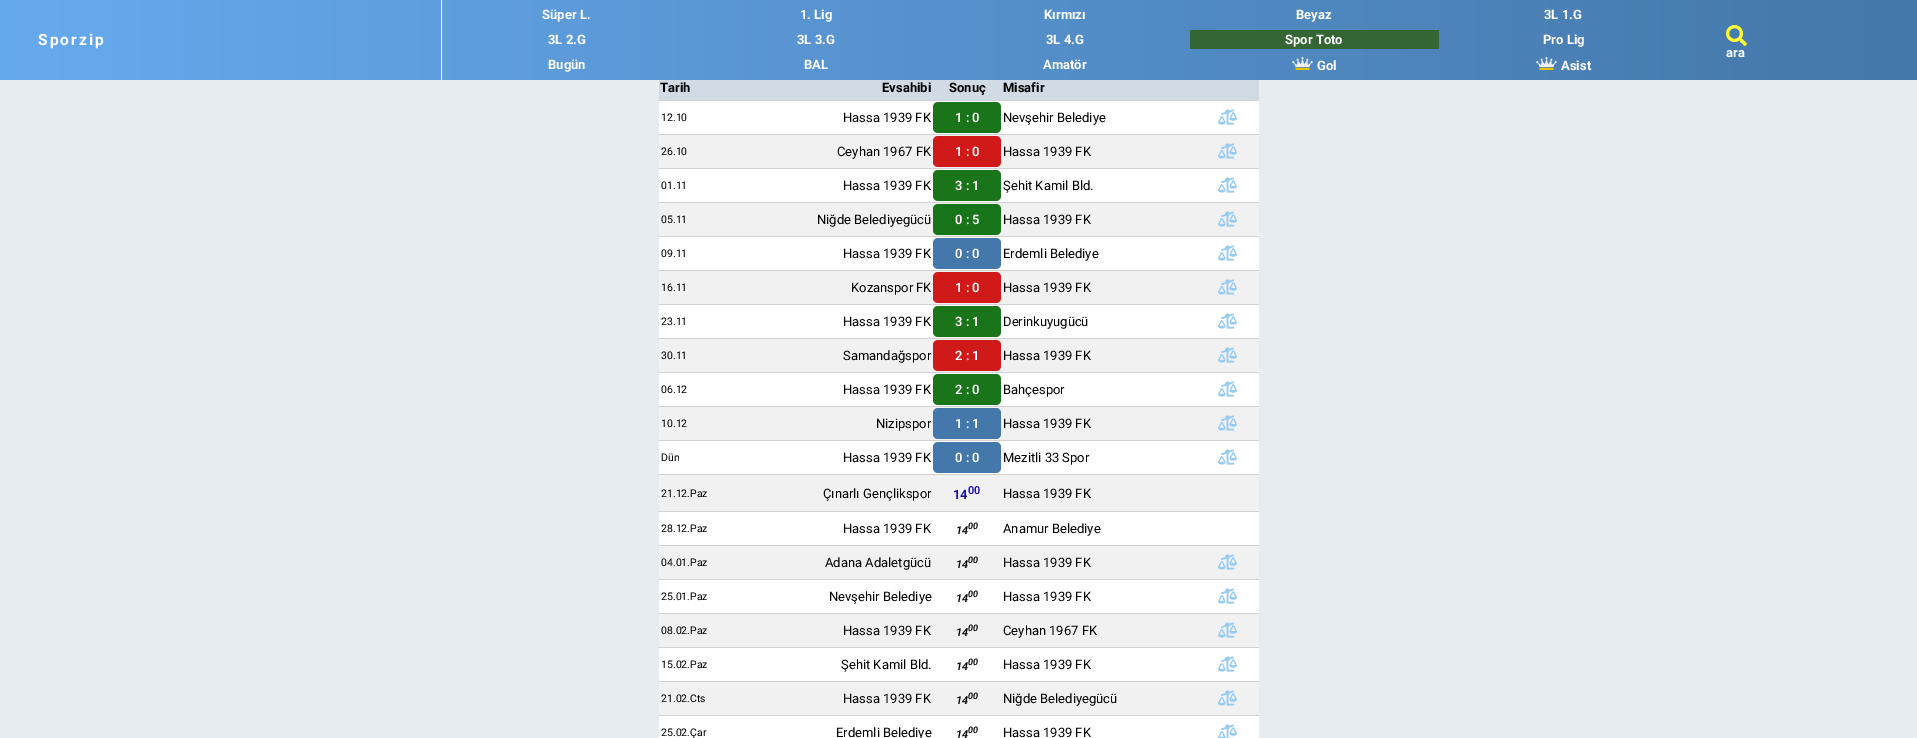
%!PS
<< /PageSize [1917 738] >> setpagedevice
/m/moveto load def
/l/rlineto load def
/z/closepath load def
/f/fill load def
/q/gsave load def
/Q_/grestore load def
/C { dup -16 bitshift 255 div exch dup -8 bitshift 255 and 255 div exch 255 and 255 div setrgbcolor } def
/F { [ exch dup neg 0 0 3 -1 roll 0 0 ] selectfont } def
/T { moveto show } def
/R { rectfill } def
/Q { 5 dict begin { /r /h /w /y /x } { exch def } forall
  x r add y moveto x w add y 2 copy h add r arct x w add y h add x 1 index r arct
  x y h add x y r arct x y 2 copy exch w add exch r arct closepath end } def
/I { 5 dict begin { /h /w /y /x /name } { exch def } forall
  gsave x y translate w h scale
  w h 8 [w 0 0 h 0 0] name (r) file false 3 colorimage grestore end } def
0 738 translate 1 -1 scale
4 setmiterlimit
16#E6ECF0 C
0 0 1917 738 R
16#D0DBE6 C
1194 74 3 27 R
q 0 0 m 1917 0 l 0 80 l -1917 0 l z clip newpath
<< /ShadingType 2 /ColorSpace /DeviceRGB /Coords [0 40 1917 40] /Extend [true true] /Function << /FunctionType 2 /Domain [0 1] /C0 [.4 .667 .933] /C1 [.267 .467 .667] /N 1 >> >> shfill Q_
16#FFFFFF C
441 0 1 80 R
/Roboto-Bold 15.5 F
38 45 m 2 0 (Sporzip) ashow
/Roboto-Bold 13 F
(Süper L.) 542 19 T
(1. Lig) 800 19 T
(Kırmızı) 1044 19 T
(Beyaz) 1296 19 T
(3L 1.G) 1544 19 T
(3L 2.G) 548 44 T
(3L 3.G) 797 44 T
(3L 4.G) 1046 44 T
16#336633 C
1190 30 249 19 R
16#FFFFFF C
(Spor Toto) 1285 44 T
(Pro Lig) 1543 44 T
(Bugün) 548 69 T
(BAL) 804 69 T
(Amatör) 1043 69 T
(1.rgb) 1292 57 21 13 I
(Gol) 1317 70 T
(2.rgb) 1536 57 21 13 I
(Asist) 1561 70 T
(3.rgb) 1726 25 21 21 I
(ara) 1726 57 T
16#D2D2D2 C
658 100 601 1 R
16#D0DBE6 C
659 80 535 20 R
16#000000 C
(Tarih) 660 92 T
(Evsahibi) 882 92 T
(Sonuç) 949 92 T
(Misafir) 1003 92 T
16#D0DBE6 C
1197 80 62 20 R
16#FFFFFF C
659 101 600 33 R
16#D2D2D2 C
658 134 601 1 R
/Roboto-Regular 10.5 F
16#000000 C
(12.10) 661 121 T
/Roboto-Regular 13 F
(Hassa 1939 FK) 843 122 T
16#1A751A C
933 102 68 31 5 Q f
/Roboto-SemiBold 13 F
16#FFFFFF C
(1 : 0) 955 122 T
/Roboto-Regular 13 F
16#000000 C
(Nevşehir Belediye) 1003 122 T
(4.rgb) 1218 109 19 16 I
16#F1F1F1 C
659 135 600 33 R
16#D2D2D2 C
658 168 601 1 R
/Roboto-Regular 10.5 F
16#000000 C
(26.10) 661 155 T
/Roboto-Regular 13 F
(Ceyhan 1967 FK) 837 156 T
16#D01A1A C
933 136 68 31 5 Q f
/Roboto-SemiBold 13 F
16#FFFFFF C
(1 : 0) 955 156 T
/Roboto-Regular 13 F
16#000000 C
(Hassa 1939 FK) 1003 156 T
(5.rgb) 1218 143 19 16 I
16#FFFFFF C
659 169 600 33 R
16#D2D2D2 C
658 202 601 1 R
/Roboto-Regular 10.5 F
16#000000 C
(01.11) 661 189 T
/Roboto-Regular 13 F
(Hassa 1939 FK) 843 190 T
16#1A751A C
933 170 68 31 5 Q f
/Roboto-SemiBold 13 F
16#FFFFFF C
(3 : 1) 955 190 T
/Roboto-Regular 13 F
16#000000 C
(Şehit Kamil Bld.) 1003 190 T
(4.rgb) 1218 177 19 16 I
16#F1F1F1 C
659 203 600 33 R
16#D2D2D2 C
658 236 601 1 R
/Roboto-Regular 10.5 F
16#000000 C
(05.11) 661 223 T
/Roboto-Regular 13 F
(Niğde Belediyegücü) 817 224 T
16#187418 C
933 204 68 31 5 Q f
/Roboto-SemiBold 13 F
16#FFFFFF C
(0 : 5) 955 224 T
/Roboto-Regular 13 F
16#000000 C
(Hassa 1939 FK) 1003 224 T
(5.rgb) 1218 211 19 16 I
16#FFFFFF C
659 237 600 33 R
16#D2D2D2 C
658 270 601 1 R
/Roboto-Regular 10.5 F
16#000000 C
(09.11) 661 257 T
/Roboto-Regular 13 F
(Hassa 1939 FK) 843 258 T
16#4477AA C
933 238 68 31 5 Q f
/Roboto-SemiBold 13 F
16#FFFFFF C
(0 : 0) 955 258 T
/Roboto-Regular 13 F
16#000000 C
(Erdemli Belediye) 1003 258 T
(4.rgb) 1218 245 19 16 I
16#F1F1F1 C
659 271 600 33 R
16#D2D2D2 C
658 304 601 1 R
/Roboto-Regular 10.5 F
16#000000 C
(16.11) 661 291 T
/Roboto-Regular 13 F
(Kozanspor FK) 851 292 T
16#D01A1A C
933 272 68 31 5 Q f
/Roboto-SemiBold 13 F
16#FFFFFF C
(1 : 0) 955 292 T
/Roboto-Regular 13 F
16#000000 C
(Hassa 1939 FK) 1003 292 T
(5.rgb) 1218 279 19 16 I
16#FFFFFF C
659 305 600 33 R
16#D2D2D2 C
658 338 601 1 R
/Roboto-Regular 10.5 F
16#000000 C
(23.11) 661 325 T
/Roboto-Regular 13 F
(Hassa 1939 FK) 843 326 T
16#1A751A C
933 306 68 31 5 Q f
/Roboto-SemiBold 13 F
16#FFFFFF C
(3 : 1) 955 326 T
/Roboto-Regular 13 F
16#000000 C
(Derinkuyugücü) 1003 326 T
(4.rgb) 1218 313 19 16 I
16#F1F1F1 C
659 339 600 33 R
16#D2D2D2 C
658 372 601 1 R
/Roboto-Regular 10.5 F
16#000000 C
(30.11) 661 359 T
/Roboto-Regular 13 F
(Samandağspor) 843 360 T
16#D01A1A C
933 340 68 31 5 Q f
/Roboto-SemiBold 13 F
16#FFFFFF C
(2 : 1) 955 360 T
/Roboto-Regular 13 F
16#000000 C
(Hassa 1939 FK) 1003 360 T
(5.rgb) 1218 347 19 16 I
16#FFFFFF C
659 373 600 33 R
16#D2D2D2 C
658 406 601 1 R
/Roboto-Regular 10.5 F
16#000000 C
(06.12) 661 393 T
/Roboto-Regular 13 F
(Hassa 1939 FK) 843 394 T
16#1A751A C
933 374 68 31 5 Q f
/Roboto-SemiBold 13 F
16#FFFFFF C
(2 : 0) 955 394 T
/Roboto-Regular 13 F
16#000000 C
(Bahçespor) 1003 394 T
(4.rgb) 1218 381 19 16 I
16#F1F1F1 C
659 407 600 33 R
16#D2D2D2 C
658 440 601 1 R
/Roboto-Regular 10.5 F
16#000000 C
(10.12) 661 427 T
/Roboto-Regular 13 F
(Nizipspor) 876 428 T
16#4477AA C
933 408 68 31 5 Q f
/Roboto-SemiBold 13 F
16#FFFFFF C
(1 : 1) 955 428 T
/Roboto-Regular 13 F
16#000000 C
(Hassa 1939 FK) 1003 428 T
(5.rgb) 1218 415 19 16 I
16#FFFFFF C
659 441 600 33 R
16#D2D2D2 C
658 474 601 1 R
/Roboto-Regular 10.5 F
16#000000 C
(Dün) 661 461 T
/Roboto-Regular 13 F
(Hassa 1939 FK) 843 462 T
16#4477AA C
933 442 68 31 5 Q f
/Roboto-SemiBold 13 F
16#FFFFFF C
(0 : 0) 955 462 T
/Roboto-Regular 13 F
16#000000 C
(Mezitli 33 Spor) 1003 462 T
(4.rgb) 1218 449 19 16 I
16#F1F1F1 C
659 475 600 36 R
16#D2D2D2 C
658 511 601 1 R
/Roboto-Regular 10.5 F
16#000000 C
(21.12.Paz) 661 497 T
/Roboto-Regular 13 F
(Çınarlı Gençlikspor) 823 498 T
/Roboto-SemiBold 13 F
16#1A0DAB C
(14) 953 499 T
/Roboto-SemiBold 11 F
(00) 968 494 T
/Roboto-Regular 13 F
16#000000 C
(Hassa 1939 FK) 1003 498 T
16#FFFFFF C
659 512 600 33 R
16#D2D2D2 C
658 545 601 1 R
/Roboto-Regular 10.5 F
16#000000 C
(28.12.Paz) 661 532 T
/Roboto-Regular 13 F
(Hassa 1939 FK) 843 533 T
/Roboto-SemiBoldItalic 11 F
(14) 956 534 T
/Roboto-SemiBoldItalic 9 F
(00) 968 529 T
/Roboto-Regular 13 F
(Anamur Belediye) 1003 533 T
16#F1F1F1 C
659 546 600 33 R
16#D2D2D2 C
658 579 601 1 R
/Roboto-Regular 10.5 F
16#000000 C
(04.01.Paz) 661 566 T
/Roboto-Regular 13 F
(Adana Adaletgücü) 825 567 T
/Roboto-SemiBoldItalic 11 F
(14) 956 568 T
/Roboto-SemiBoldItalic 9 F
(00) 968 563 T
/Roboto-Regular 13 F
(Hassa 1939 FK) 1003 567 T
(5.rgb) 1218 554 19 16 I
16#FFFFFF C
659 580 600 33 R
16#D2D2D2 C
658 613 601 1 R
/Roboto-Regular 10.5 F
16#000000 C
(25.01.Paz) 661 600 T
/Roboto-Regular 13 F
(Nevşehir Belediye) 829 601 T
/Roboto-SemiBoldItalic 11 F
(14) 956 602 T
/Roboto-SemiBoldItalic 9 F
(00) 968 597 T
/Roboto-Regular 13 F
(Hassa 1939 FK) 1003 601 T
(4.rgb) 1218 588 19 16 I
16#F1F1F1 C
659 614 600 33 R
16#D2D2D2 C
658 647 601 1 R
/Roboto-Regular 10.5 F
16#000000 C
(08.02.Paz) 661 634 T
/Roboto-Regular 13 F
(Hassa 1939 FK) 843 635 T
/Roboto-SemiBoldItalic 11 F
(14) 956 636 T
/Roboto-SemiBoldItalic 9 F
(00) 968 631 T
/Roboto-Regular 13 F
(Ceyhan 1967 FK) 1003 635 T
(5.rgb) 1218 622 19 16 I
16#FFFFFF C
659 648 600 33 R
16#D2D2D2 C
658 681 601 1 R
/Roboto-Regular 10.5 F
16#000000 C
(15.02.Paz) 661 668 T
/Roboto-Regular 13 F
(Şehit Kamil Bld.) 841 669 T
/Roboto-SemiBoldItalic 11 F
(14) 956 670 T
/Roboto-SemiBoldItalic 9 F
(00) 968 665 T
/Roboto-Regular 13 F
(Hassa 1939 FK) 1003 669 T
(4.rgb) 1218 656 19 16 I
16#F1F1F1 C
659 682 600 33 R
16#D2D2D2 C
658 715 601 1 R
/Roboto-Regular 10.5 F
16#000000 C
(21.02.Cts) 661 702 T
/Roboto-Regular 13 F
(Hassa 1939 FK) 843 703 T
/Roboto-SemiBoldItalic 11 F
(14) 956 704 T
/Roboto-SemiBoldItalic 9 F
(00) 968 699 T
/Roboto-Regular 13 F
(Niğde Belediyegücü) 1003 703 T
(5.rgb) 1218 690 19 16 I
16#FFFFFF C
659 716 600 22 R
/Roboto-Regular 10.5 F
16#000000 C
(25.02.Çar) 661 736 T
/Roboto-Regular 13 F
(Erdemli Belediye) 836 737 T
/Roboto-SemiBoldItalic 11 F
(14) 956 738 T
/Roboto-SemiBoldItalic 9 F
(00) 968 733 T
/Roboto-Regular 13 F
(Hassa 1939 FK) 1003 737 T
(6.rgb) 1218 724 19 14 I
showpage
